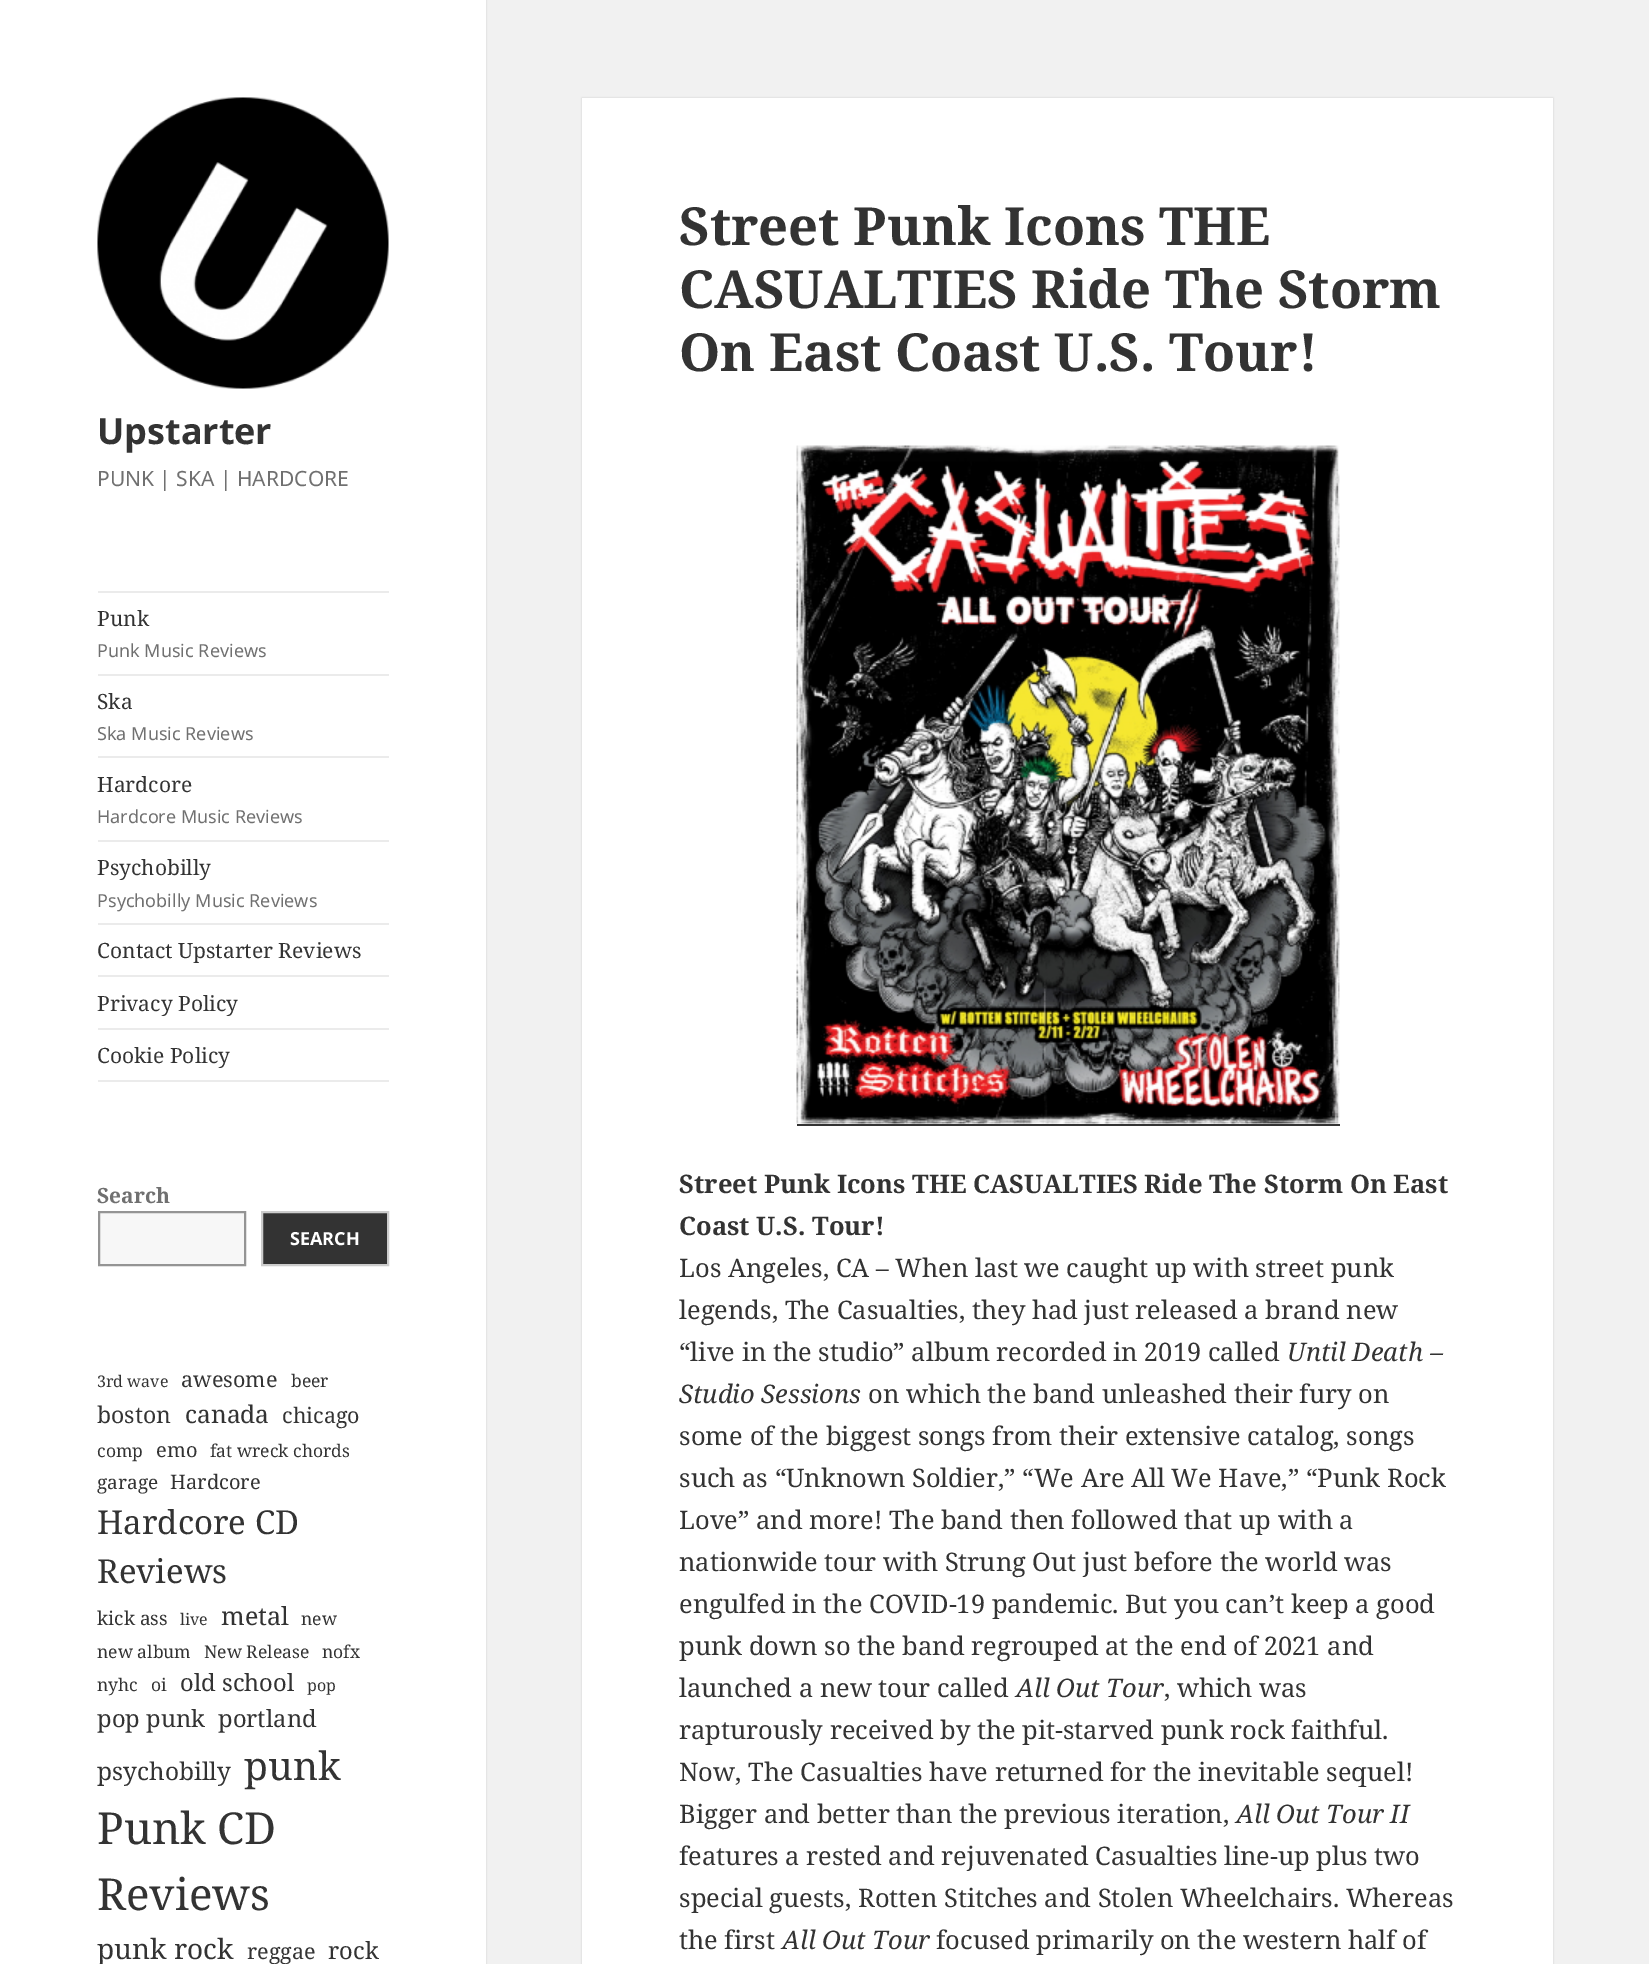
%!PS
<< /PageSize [1649 1964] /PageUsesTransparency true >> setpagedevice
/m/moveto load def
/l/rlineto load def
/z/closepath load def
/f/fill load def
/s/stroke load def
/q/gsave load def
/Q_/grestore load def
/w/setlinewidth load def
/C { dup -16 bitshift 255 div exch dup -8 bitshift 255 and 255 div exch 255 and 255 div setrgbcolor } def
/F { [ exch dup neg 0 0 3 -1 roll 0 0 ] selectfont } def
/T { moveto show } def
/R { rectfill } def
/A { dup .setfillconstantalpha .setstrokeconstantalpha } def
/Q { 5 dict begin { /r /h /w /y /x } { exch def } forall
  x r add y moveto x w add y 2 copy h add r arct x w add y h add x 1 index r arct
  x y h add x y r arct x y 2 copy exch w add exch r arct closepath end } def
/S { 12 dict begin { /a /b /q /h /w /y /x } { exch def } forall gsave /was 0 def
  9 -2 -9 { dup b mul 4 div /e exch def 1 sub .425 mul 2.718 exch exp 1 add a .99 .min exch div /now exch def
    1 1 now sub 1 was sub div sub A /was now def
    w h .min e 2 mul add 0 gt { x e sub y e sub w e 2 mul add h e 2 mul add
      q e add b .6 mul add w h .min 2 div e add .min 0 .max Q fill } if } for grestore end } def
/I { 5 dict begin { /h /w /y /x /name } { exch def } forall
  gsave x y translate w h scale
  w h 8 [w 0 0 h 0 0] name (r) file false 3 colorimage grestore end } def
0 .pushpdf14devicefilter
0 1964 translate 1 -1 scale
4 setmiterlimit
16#F1F1F1 C
0 0 1649 1964 R
16#000000 C
0 0 486 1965 0 1 .15 S
16#FFFFFF C
0 0 486 1964 R
(1.rgb) 97 97 292 292 I
/NotoSans-Bold 36 F
16#333333 C
(Upstarter) 97 444 T
/NotoSans-Regular 21 F
16#707070 C
(PUNK | SKA | HARDCORE) 97 486 T
16#EBEBEB C
98 591 291 2 R
98 1080 291 2 R
/NotoSerif-Regular 21 F
16#333333 C
(Punk) 97 626 T
/NotoSans-Regular 18 F
16#707070 C
(Punk Music Reviews) 97 657 T
16#EBEBEB C
98 674 291 2 R
/NotoSerif-Regular 21 F
16#333333 C
(Ska) 97 709 T
/NotoSans-Regular 18 F
16#707070 C
(Ska Music Reviews) 97 740 T
16#EBEBEB C
98 756 291 2 R
/NotoSerif-Regular 21 F
16#333333 C
(Hardcore) 97 792 T
/NotoSans-Regular 18 F
16#707070 C
(Hardcore Music Reviews) 97 823 T
16#EBEBEB C
98 840 291 2 R
/NotoSerif-Regular 21 F
16#333333 C
(Psychobilly) 97 875 T
/NotoSans-Regular 18 F
16#707070 C
(Psychobilly Music Reviews) 97 907 T
16#EBEBEB C
98 923 291 2 R
/NotoSerif-Regular 21 F
16#333333 C
(Contact Upstarter Reviews) 97 958 T
16#EBEBEB C
98 975 291 2 R
16#333333 C
(Privacy Policy) 97 1011 T
16#EBEBEB C
98 1028 291 2 R
16#333333 C
(Cookie Policy) 97 1063 T
/NotoSerif-Bold 21 F
16#707070 C
(Search) 97 1203 T
16#F7F7F7 C
99 1212 m 146 0 l 0 53 l -146 0 l z q f Q_
16#949494 C
2 w
s
16#333333 C
262 1212 m 126 0 l 0 53 l -126 0 l z q f Q_
16#CCCCCC C
s
/NotoSans-Bold 18 F
16#FFFFFF C
(SEARCH) 290 1245 T
/NotoSerif-Regular 16 F
16#333333 C
(3rd wave) 97 1387 T
/NotoSerif-Regular 21.5 F
(awesome) 181 1387 T
/NotoSerif-Regular 17.5 F
(beer) 291 1387 T
/NotoSerif-Regular 23 F
(boston) 97 1423 T
/NotoSerif-Regular 24.5 F
(canada) 185 1423 T
/NotoSerif-Regular 21.5 F
(chicago) 282 1423 T
/NotoSerif-Regular 17.5 F
(comp) 97 1457 T
/NotoSerif-Regular 20 F
(emo) 156 1457 T
/NotoSerif-Regular 17.5 F
(fat wreck chords) 210 1457 T
/NotoSerif-Regular 19 F
(garage) 97 1489 T
/NotoSerif-Regular 20 F
(Hardcore) 170 1489 T
/NotoSerif-Regular 33 F
(Hardcore CD) 97 1534 T
(Reviews) 97 1583 T
/NotoSerif-Regular 19 F
(kick ass) 97 1625 T
/NotoSerif-Regular 16 F
(live) 180 1625 T
/NotoSerif-Regular 25 F
(metal) 221 1625 T
/NotoSerif-Regular 17.5 F
(new) 301 1625 T
(new album) 97 1658 T
(New Release) 204 1658 T
(nofx) 322 1658 T
(nyhc) 97 1691 T
(oi) 151 1691 T
/NotoSerif-Regular 23.75 F
(old school) 180 1691 T
/NotoSerif-Regular 16 F
(pop) 307 1691 T
/NotoSerif-Regular 23.75 F
(pop punk) 97 1727 T
(portland) 218 1727 T
/NotoSerif-Regular 24.5 F
(psychobilly) 97 1780 T
/NotoSerif-Regular 39 F
(punk) 244 1780 T
/NotoSerif-Regular 44 F
(Punk CD) 97 1844 T
(Reviews) 97 1910 T
/NotoSerif-Regular 28 F
(punk rock) 97 1959 T
/NotoSerif-Regular 21.5 F
(reggae) 247 1959 T
/NotoSerif-Regular 23.75 F
(rock) 328 1959 T
16#000000 C
582 98 971 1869 0 1 .15 S
16#FFFFFF C
582 98 971 1866 R
/NotoSerif-Bold 52.5 F
16#333333 C
(Street Punk Icons THE) 679 245 T
(CASUALTIES Ride The Storm) 679 308 T
(On East Coast U.S. Tour!) 679 371 T
797 1124 543 2 R
(2.rgb) 796 445 544 679 I
/NotoSerif-Bold 25.5 F
(Street Punk Icons THE CASUALTIES Ride The Storm On East) 679 1193 T
(Coast U.S. Tour!) 679 1235 T
/NotoSerif-Regular 25.5 F
(Los Angeles, CA – When last we caught up with street punk) 679 1277 T
(legends, The Casualties, they had just released a brand new) 679 1319 T
(“live in the studio” album recorded in 2019 called) 679 1361 T
/NotoSerif-Italic 25.5 F
(Until Death –) 1287 1361 T
(Studio Sessions) 679 1403 T
/NotoSerif-Regular 25.5 F
(on which the band unleashed their fury on) 868 1403 T
(some of the biggest songs from their extensive catalog, songs) 679 1445 T
(such as “Unknown Soldier,” “We Are All We Have,” “Punk Rock) 679 1487 T
(Love” and more! The band then followed that up with a) 679 1529 T
(nationwide tour with Strung Out just before the world was) 679 1571 T
(engulfed in the COVID-19 pandemic. But you can’t keep a good) 679 1613 T
(punk down so the band regrouped at the end of 2021 and) 679 1655 T
(launched a new tour called) 679 1697 T
/NotoSerif-Italic 25.5 F
(All Out Tour) 1016 1697 T
/NotoSerif-Regular 25.5 F
(, which was) 1164 1697 T
(rapturously received by the pit-starved punk rock faithful.) 679 1739 T
(Now, The Casualties have returned for the inevitable sequel!) 679 1781 T
(Bigger and better than the previous iteration,) 679 1823 T
/NotoSerif-Italic 25.5 F
(All Out Tour II) 1236 1823 T
/NotoSerif-Regular 25.5 F
(features a rested and rejuvenated Casualties line-up plus two) 679 1865 T
(special guests, Rotten Stitches and Stolen Wheelchairs. Whereas) 679 1907 T
(the first) 679 1949 T
/NotoSerif-Italic 25.5 F
(All Out Tour) 782 1949 T
/NotoSerif-Regular 25.5 F
(focused primarily on the western half of) 936 1949 T
.poppdf14devicefilter showpage
